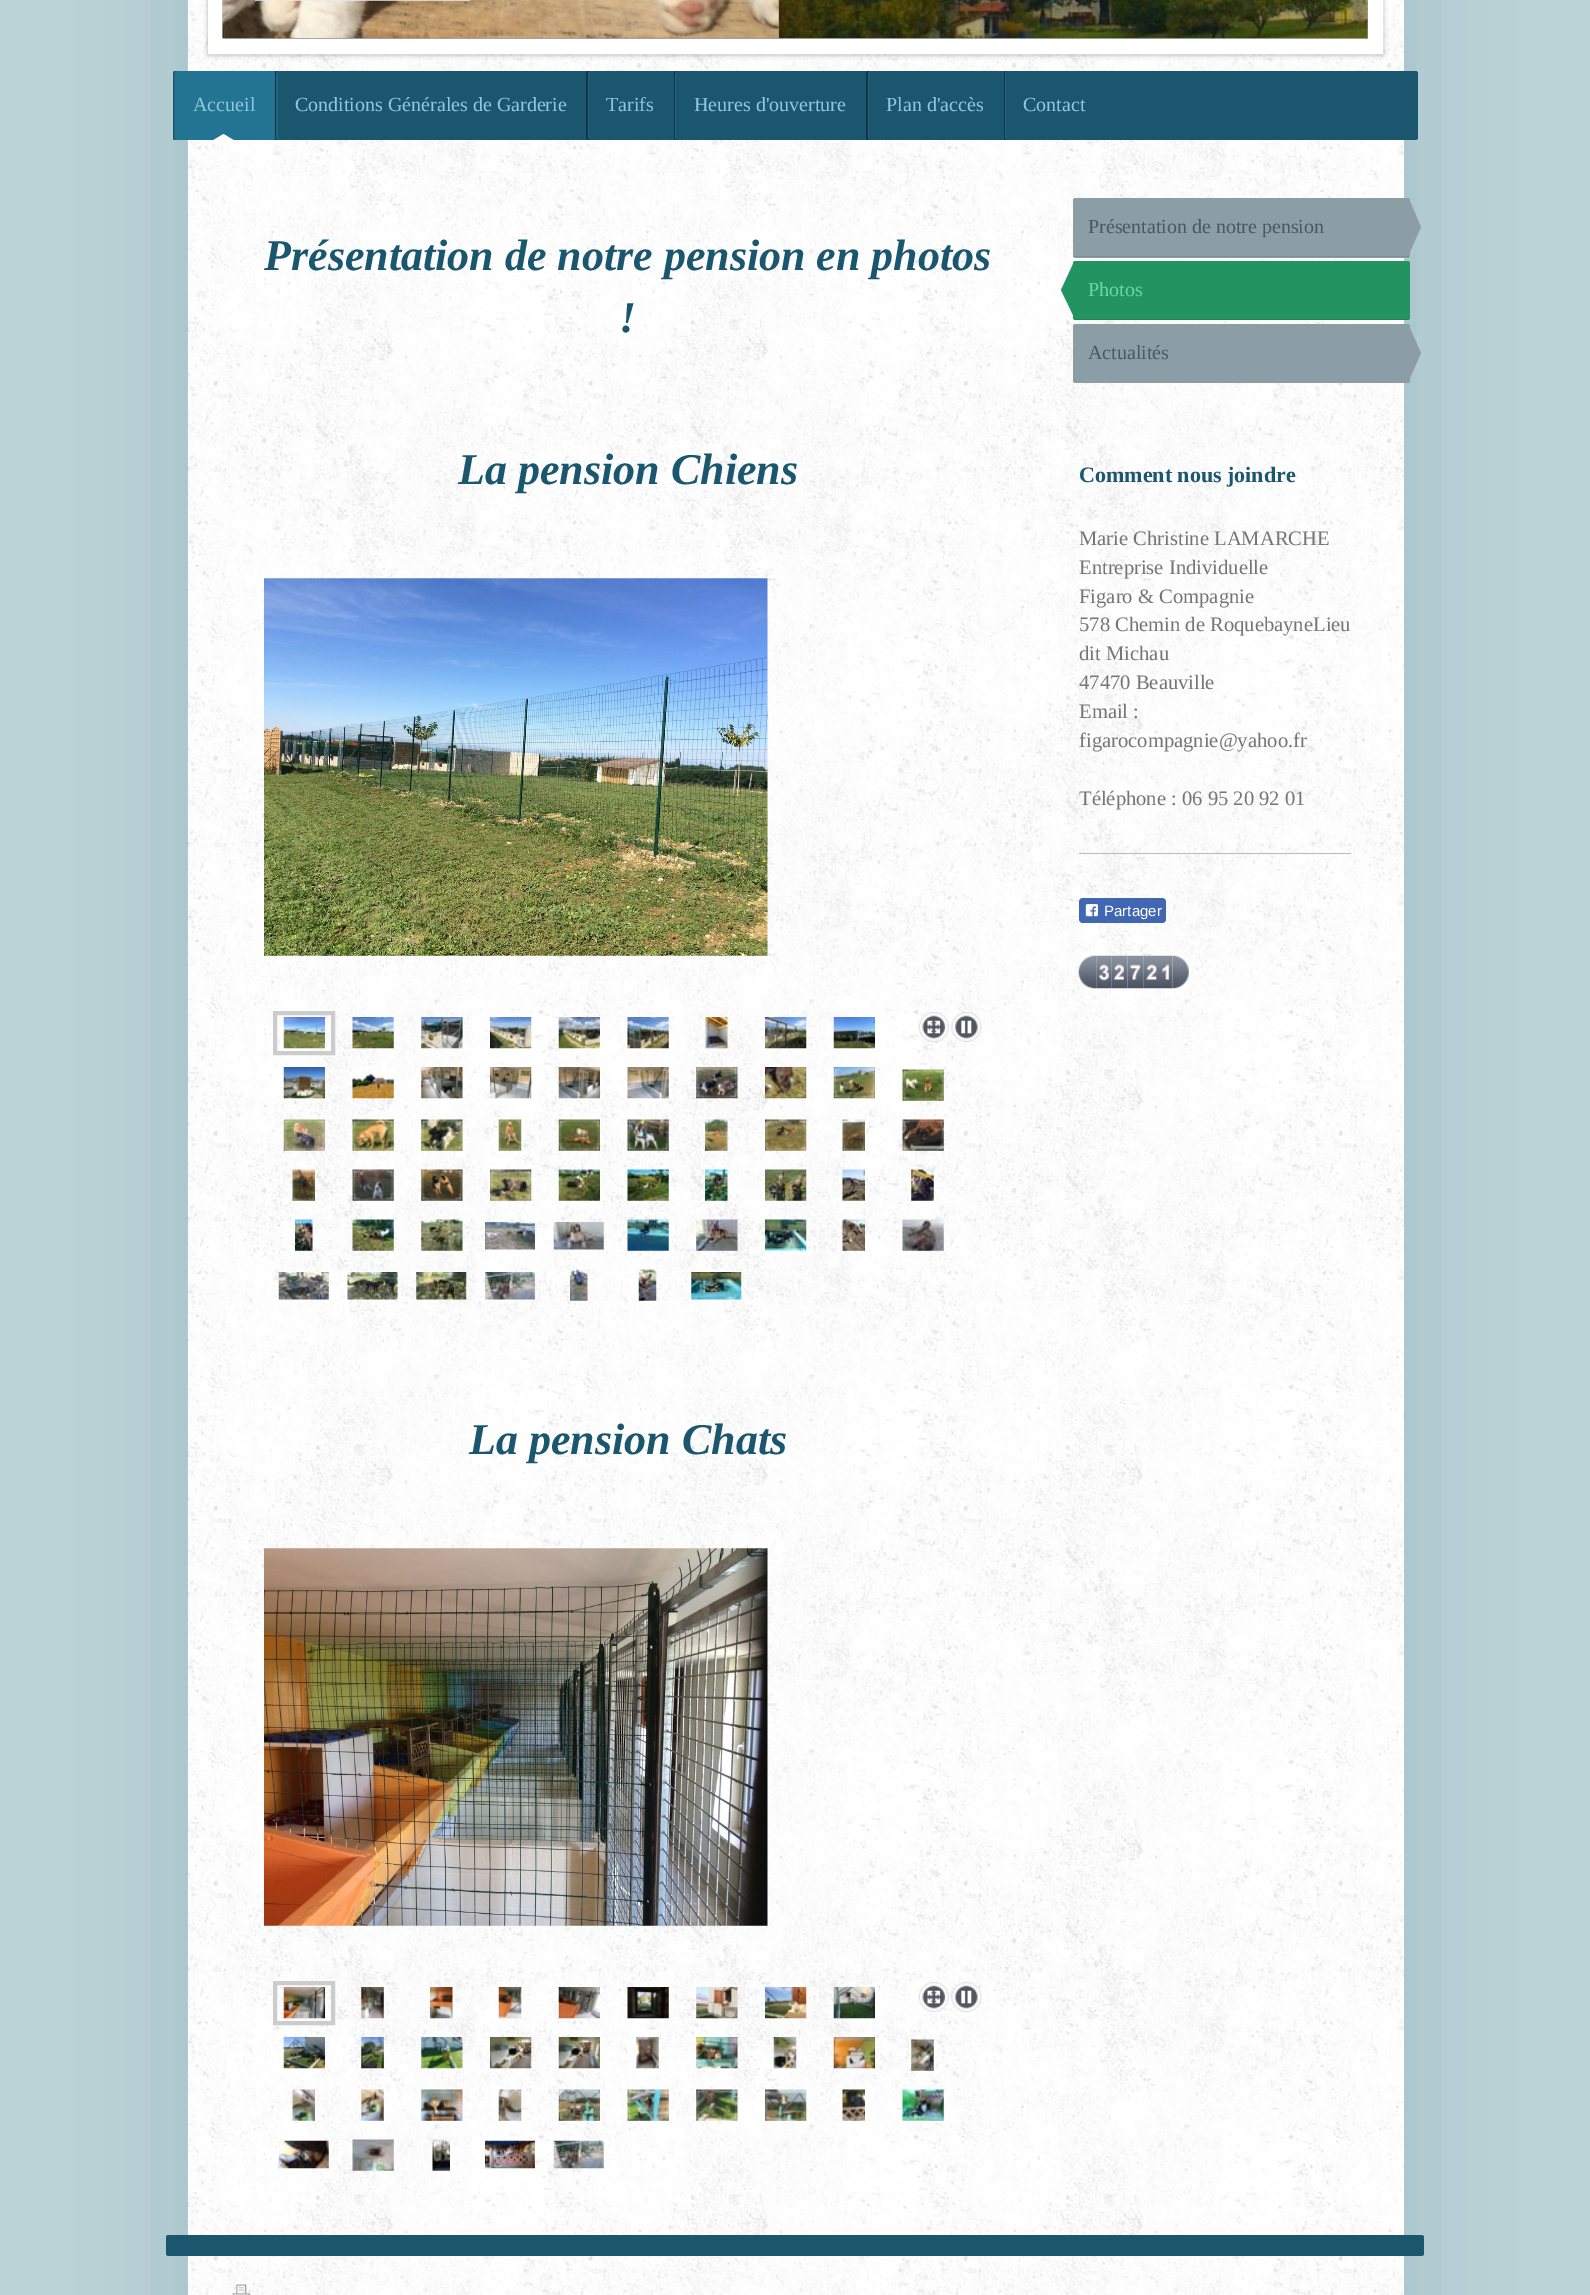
%!PS
<< /PageSize [1590 2295] /PageUsesTransparency true >> setpagedevice
/m/moveto load def
/l/rlineto load def
/c/rcurveto load def
/z/closepath load def
/f/fill load def
/w/setlinewidth load def
/C { dup -16 bitshift 255 div exch dup -8 bitshift 255 and 255 div exch 255 and 255 div setrgbcolor } def
/F { [ exch dup neg 0 0 3 -1 roll 0 0 ] selectfont } def
/T { moveto show } def
/R { rectfill } def
/A { dup .setfillconstantalpha .setstrokeconstantalpha } def
/Q { 5 dict begin { /r /h /w /y /x } { exch def } forall
  x r add y moveto x w add y 2 copy h add r arct x w add y h add x 1 index r arct
  x y h add x y r arct x y 2 copy exch w add exch r arct closepath end } def
/S { 12 dict begin { /a /b /q /h /w /y /x } { exch def } forall gsave /was 0 def
  9 -2 -9 { dup b mul 4 div /e exch def 1 sub .425 mul 2.718 exch exp 1 add a .99 .min exch div /now exch def
    1 1 now sub 1 was sub div sub A /was now def
    w h .min e 2 mul add 0 gt { x e sub y e sub w e 2 mul add h e 2 mul add
      q e add b .6 mul add w h .min 2 div e add .min 0 .max Q fill } if } for grestore end } def
/I { 5 dict begin { /h /w /y /x /name } { exch def } forall
  gsave x y translate w h scale
  w h 8 [w 0 0 h 0 0] name (r) file false 3 colorimage grestore end } def
0 .pushpdf14devicefilter
0 2295 translate 1 -1 scale
4 setmiterlimit
16#BAD1D6 C
0 0 1590 2295 R
16#9DBEC5 C
188 -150 1216 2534 0 50 1 S
16#FFFFFF C
188 0 1216 2295 R
(1.rgb) 187 0 1217 2295 I
16#000000 C
208 -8 1175 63 0 2.5 .3 S
16#FFFFFF C
15 w
215.5 -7.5 1160 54 rectstroke
(2.rgb) 222 0 1 38 I
16#A0A0A0 C
223 0 1145 39 R
(3.rgb) 222 0 557 39 I
(4.rgb) 778 0 590 39 I
0.75 A
16#EAEAEA C
255 0 215 1 R
1 A
16#1A566E C
173 71 1245 69 2.5 Q f
16#237393 C
173 71 102 69 2.5 Q f
16#1F6683 C
176 71 m -2 0 -3 1 -3 3 c 0 64 l 0 1 1 2 3 2 c 2 0 l -2 0 -3 -1 -3 -2 c 0 -64 l 0 -2 1 -3 3 -3 c z f
16#1B5972 C
176 71 m -2 0 -3 1 -3 3 c 0 64 l 0 1 1 2 3 2 c -1 0 -2 -1 -2 -2 c 0 -64 l 0 -2 1 -3 2 -3 c z f
/LiberationSerif-Regular 20 F
16#8FC8DF C
(Accueil) 193 111 T
16#FFFFFF C
233.5 140 m -20 0 l 10 -6 l z f
16#1F6683 C
278 71 m -2 0 -3 1 -3 3 c 0 64 l 0 1 1 2 3 2 c 2 0 l -1 0 -2 -1 -2 -2 c 0 -64 l 0 -2 1 -3 2 -3 c z f
16#103645 C
278 71 m -2 0 -3 1 -3 3 c 0 64 l 0 1 1 2 3 2 c 1 0 l -2 0 -3 -1 -3 -2 c 0 -64 l 0 -2 1 -3 3 -3 c z f
16#8FC8DF C
(Conditions Générales de Garderie) 295 111 T
16#1F6683 C
588 71 m -1 0 -2 1 -2 3 c 0 64 l 0 1 1 2 2 2 c 3 0 l -1 0 -2 -1 -2 -2 c 0 -64 l 0 -2 1 -3 2 -3 c z f
16#103645 C
588 71 m -1 0 -2 1 -2 3 c 0 64 l 0 1 1 2 2 2 c 2 0 l -1 0 -2 -1 -2 -2 c 0 -64 l 0 -2 1 -3 2 -3 c z f
16#8FC8DF C
(Tarifs) 606 111 T
16#1F6683 C
676 71 m -1 0 -2 1 -2 3 c 0 64 l 0 1 1 2 2 2 c 3 0 l -2 0 -3 -1 -3 -2 c 0 -64 l 0 -2 1 -3 3 -3 c z f
16#103645 C
676 71 m -1 0 -2 1 -2 3 c 0 64 l 0 1 1 2 2 2 c 2 0 l -2 0 -3 -1 -3 -2 c 0 -64 l 0 -2 1 -3 3 -3 c z f
16#8FC8DF C
(Heures d'ouverture) 694 111 T
16#1F6683 C
868 71 m -1 0 -2 1 -2 3 c 0 64 l 0 1 1 2 2 2 c 3 0 l -1 0 -2 -1 -2 -2 c 0 -64 l 0 -2 1 -3 2 -3 c z f
16#103645 C
868 71 m -1 0 -2 1 -2 3 c 0 64 l 0 1 1 2 2 2 c 2 0 l -1 0 -2 -1 -2 -2 c 0 -64 l 0 -2 1 -3 2 -3 c z f
16#8FC8DF C
(Plan d'accès) 886 111 T
16#1F6683 C
1006 71 m -1 0 -2 1 -2 3 c 0 64 l 0 1 1 2 2 2 c 3 0 l -2 0 -3 -1 -3 -2 c 0 -64 l 0 -2 1 -3 3 -3 c z f
16#103645 C
1006 71 m -1 0 -2 1 -2 3 c 0 64 l 0 1 1 2 2 2 c 2 0 l -2 0 -3 -1 -3 -2 c 0 -64 l 0 -2 1 -3 3 -3 c z f
16#8FC8DF C
(Contact) 1023 111 T
/LiberationSerif-BoldItalic 44 F
16#1A566E C
(Présentation de notre pension en photos) 264 270 T
(!) 619 332 T
(La pension Chiens) 458 484 T
(5.rgb) 264 578 504 378 I
16#CCCCCC C
4 w
275 1013 58 40 rectstroke
(6.rgb) 283 1017 42 32 I
(7.rgb) 352 1017 42 32 I
(8.rgb) 421 1017 42 32 I
(9.rgb) 490 1017 42 32 I
(10.rgb) 558 1017 42 32 I
(11.rgb) 627 1017 42 32 I
(12.rgb) 705 1017 23 32 I
(13.rgb) 765 1017 42 32 I
(14.rgb) 833 1017 42 32 I
(15.rgb) 918 1012 32 30 I
(16.rgb) 951 1012 31 30 I
(17.rgb) 283 1067 42 32 I
(18.rgb) 352 1067 42 32 I
(19.rgb) 421 1067 42 32 I
(20.rgb) 490 1067 42 32 I
(21.rgb) 558 1067 42 32 I
(22.rgb) 627 1067 42 32 I
(23.rgb) 696 1067 42 32 I
(24.rgb) 765 1067 42 32 I
(25.rgb) 833 1067 42 32 I
(26.rgb) 902 1069 42 32 I
(27.rgb) 283 1119 42 32 I
(28.rgb) 352 1119 42 32 I
(29.rgb) 421 1119 42 32 I
(30.rgb) 498 1119 24 32 I
(31.rgb) 558 1119 42 32 I
(32.rgb) 627 1119 42 32 I
(33.rgb) 705 1119 23 32 I
(34.rgb) 765 1119 42 32 I
(35.rgb) 842 1119 23 32 I
(36.rgb) 902 1119 42 32 I
(37.rgb) 292 1169 23 32 I
(38.rgb) 352 1169 42 32 I
(39.rgb) 421 1169 42 32 I
(40.rgb) 490 1169 42 32 I
(41.rgb) 558 1169 42 32 I
(42.rgb) 627 1169 42 32 I
(43.rgb) 705 1169 23 32 I
(44.rgb) 765 1169 42 32 I
(45.rgb) 842 1169 23 32 I
(46.rgb) 911 1169 23 32 I
(47.rgb) 295 1219 18 32 I
(48.rgb) 352 1219 42 32 I
(49.rgb) 421 1219 42 32 I
(50.rgb) 485 1222 50 28 I
(51.rgb) 553 1222 51 28 I
(52.rgb) 627 1219 42 32 I
(53.rgb) 696 1219 42 32 I
(54.rgb) 765 1219 42 32 I
(55.rgb) 842 1219 23 32 I
(56.rgb) 902 1219 42 32 I
(57.rgb) 278 1272 51 28 I
(58.rgb) 347 1272 51 28 I
(59.rgb) 416 1272 51 28 I
(60.rgb) 485 1272 50 28 I
(61.rgb) 570 1269 18 32 I
(62.rgb) 638 1269 19 32 I
(63.rgb) 691 1272 51 28 I
16#1A566E C
(La pension Chats) 469 1454 T
(64.rgb) 264 1548 504 378 I
16#CCCCCC C
275 1983 58 40 rectstroke
(65.rgb) 283 1987 42 32 I
(66.rgb) 361 1987 23 32 I
(67.rgb) 430 1987 23 32 I
(68.rgb) 498 1987 24 32 I
(69.rgb) 558 1987 42 32 I
(70.rgb) 627 1987 42 32 I
(71.rgb) 696 1987 42 32 I
(72.rgb) 765 1987 42 32 I
(73.rgb) 833 1987 42 32 I
(74.rgb) 918 1982 32 30 I
(75.rgb) 951 1982 31 30 I
(76.rgb) 283 2037 42 32 I
(77.rgb) 361 2037 23 32 I
(78.rgb) 421 2037 42 32 I
(79.rgb) 490 2037 42 32 I
(80.rgb) 558 2037 42 32 I
(81.rgb) 636 2037 23 32 I
(82.rgb) 696 2037 42 32 I
(83.rgb) 773 2037 24 32 I
(84.rgb) 833 2037 42 32 I
(85.rgb) 911 2039 23 32 I
(86.rgb) 292 2089 23 32 I
(87.rgb) 361 2089 23 32 I
(88.rgb) 421 2089 42 32 I
(89.rgb) 498 2089 24 32 I
(90.rgb) 558 2089 42 32 I
(91.rgb) 627 2089 42 32 I
(92.rgb) 696 2089 42 32 I
(93.rgb) 765 2089 42 32 I
(94.rgb) 842 2089 23 32 I
(95.rgb) 902 2089 42 32 I
(96.rgb) 278 2140 51 29 I
(97.rgb) 352 2139 42 32 I
(98.rgb) 432 2139 18 32 I
(99.rgb) 485 2140 50 29 I
(100.rgb) 553 2140 51 29 I
16#8B9EA6 C
1073 198 337 60 2.5 Q f
16#7D8E95 C
1074 256 335 1 R
/LiberationSerif-Regular 20 F
16#49585E C
(Présentation de notre pension) 1088 233 T
16#8B9EA6 C
1409 254 m 0 -55 l 12 28 l z f
16#219462 C
1073 261 337 59 2.5 Q f
0.1 A
16#000000 C
1074 319 335 1 R
1 A
16#219462 C
1074 262 m 0 55 l -13 -27 l z f
16#67D7A7 C
(Photos) 1088 296 T
16#8B9EA6 C
1073 324 337 59 2.5 Q f
16#49585E C
(Actualités) 1088 359 T
16#8B9EA6 C
1409 380 m 0 -54 l 12 27 l z f
/LiberationSerif-Bold 22 F
16#1A566E C
(Comment nous joindre) 1079 482 T
/LiberationSerif-Regular 20.6 F
16#757575 C
(Marie Christine LAMARCHE) 1079 545 T
(Entreprise Individuelle) 1079 574 T
(Figaro & Compagnie) 1079 603 T
(578 Chemin de RoquebayneLieu) 1079 631 T
(dit Michau) 1079 660 T
(47470 Beauville) 1079 689 T
(Email :) 1079 718 T
(figarocompagnie@yahoo.fr) 1079 747 T
(Téléphone : 06 95 20 92 01) 1079 805 T
16#BABABA C
1079 853 272 1 R
16#4267B2 C
1079 898 87 25 4 Q f
(101.rgb) 1085 904 13 13 I
/LiberationSans-Regular 15 F
16#FFFFFF C
(Partager) 1104 916 T
(102.rgb) 1078 955 19 34 I
(103.rgb) 1096 955 16 34 I
(104.rgb) 1111 955 17 34 I
(105.rgb) 1127 955 17 34 I
(106.rgb) 1143 955 17 34 I
(107.rgb) 1160 955 13 34 I
(108.rgb) 1172 955 17 34 I
16#1A566E C
166 2235 1258 21 2.5 Q f
(109.rgb) 232 2284 19 11 I
.poppdf14devicefilter showpage
